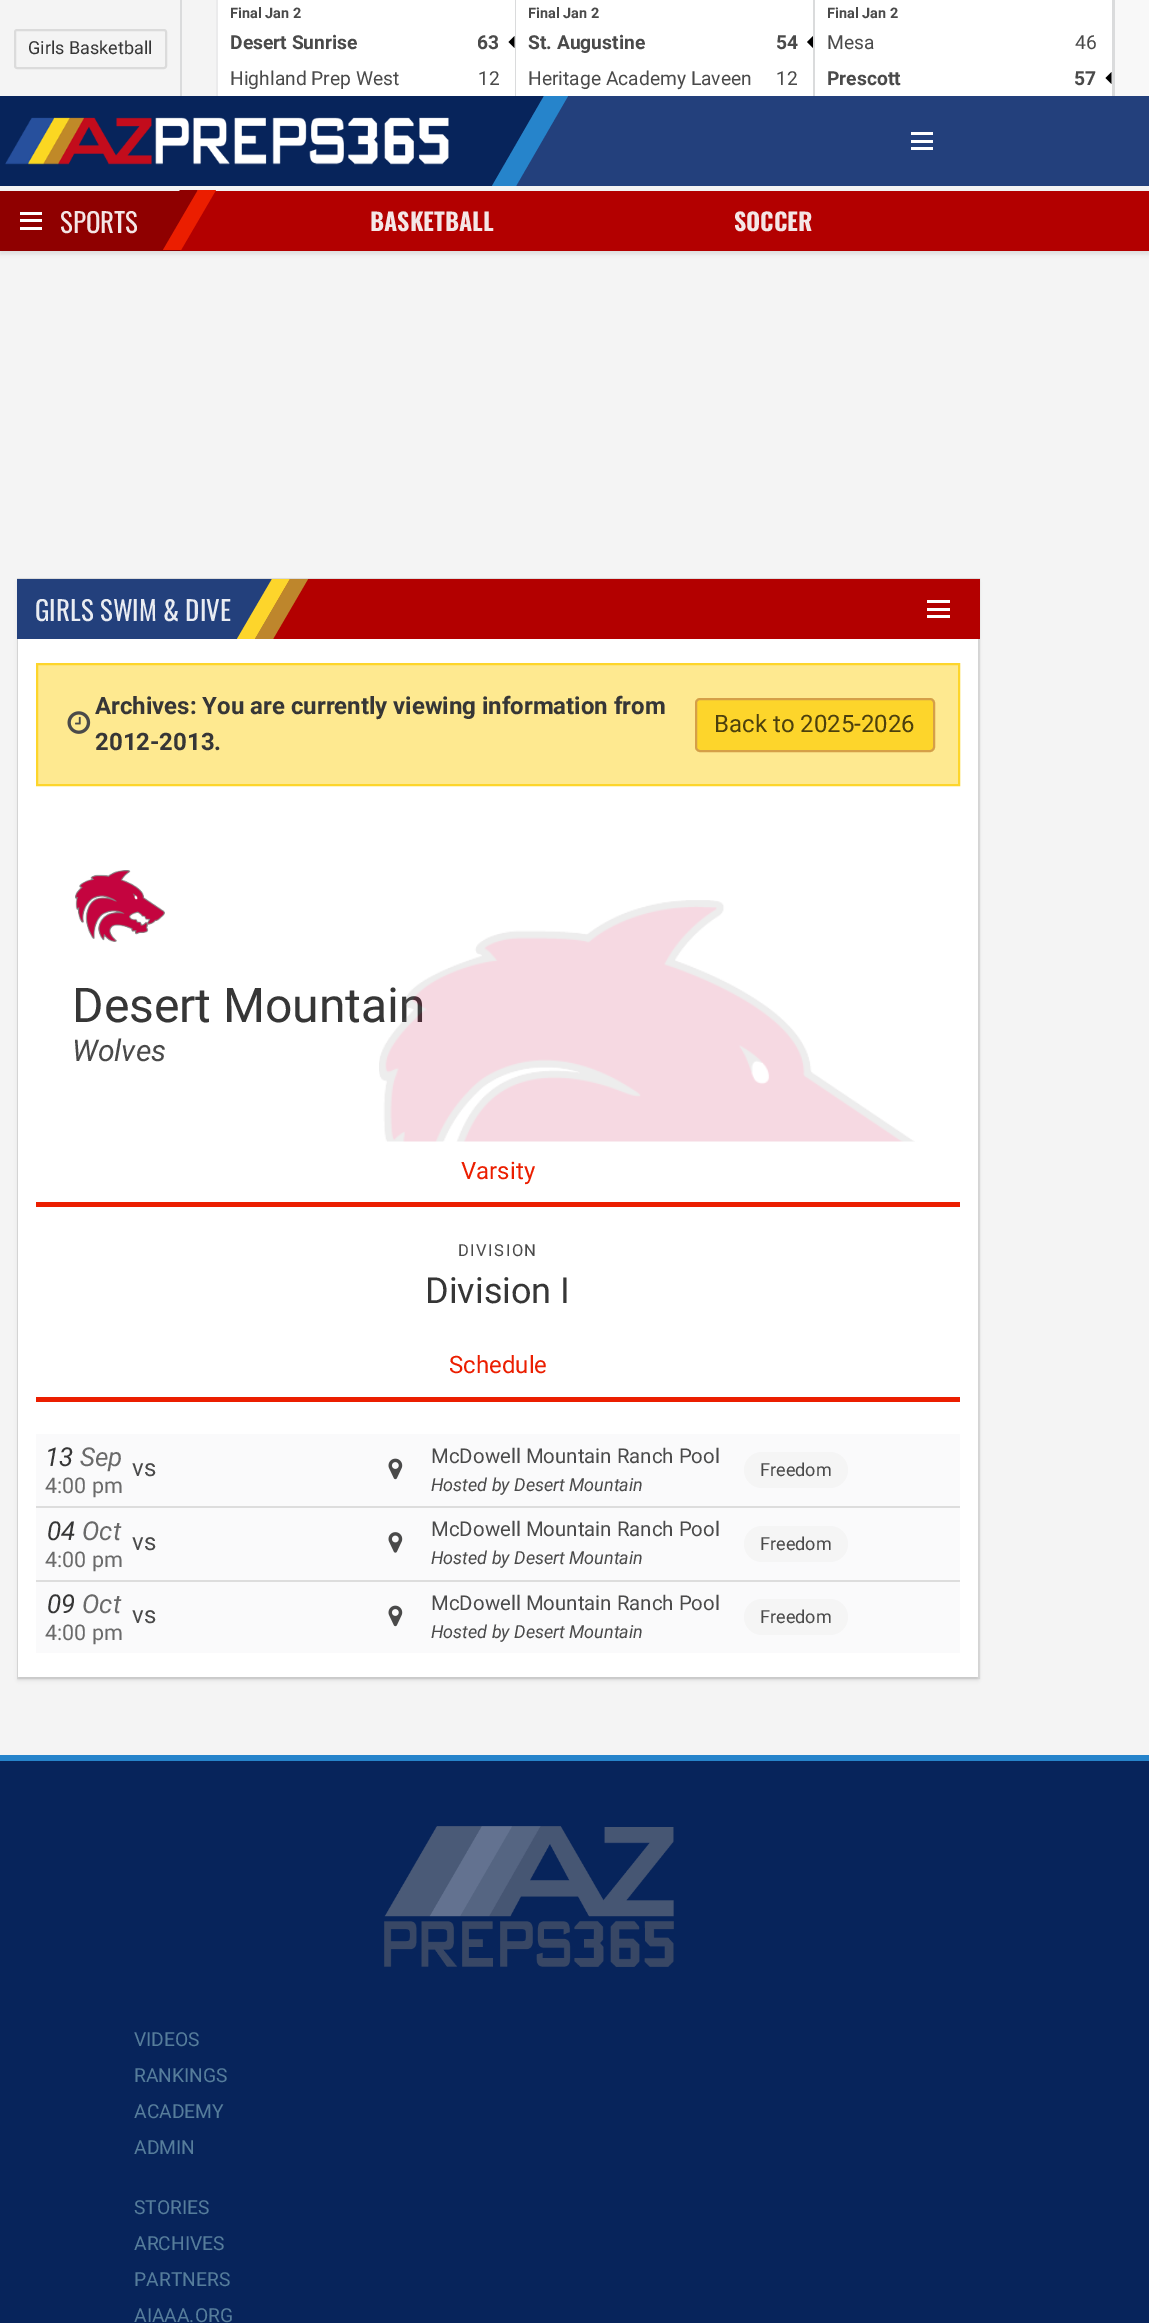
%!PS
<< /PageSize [1149 2323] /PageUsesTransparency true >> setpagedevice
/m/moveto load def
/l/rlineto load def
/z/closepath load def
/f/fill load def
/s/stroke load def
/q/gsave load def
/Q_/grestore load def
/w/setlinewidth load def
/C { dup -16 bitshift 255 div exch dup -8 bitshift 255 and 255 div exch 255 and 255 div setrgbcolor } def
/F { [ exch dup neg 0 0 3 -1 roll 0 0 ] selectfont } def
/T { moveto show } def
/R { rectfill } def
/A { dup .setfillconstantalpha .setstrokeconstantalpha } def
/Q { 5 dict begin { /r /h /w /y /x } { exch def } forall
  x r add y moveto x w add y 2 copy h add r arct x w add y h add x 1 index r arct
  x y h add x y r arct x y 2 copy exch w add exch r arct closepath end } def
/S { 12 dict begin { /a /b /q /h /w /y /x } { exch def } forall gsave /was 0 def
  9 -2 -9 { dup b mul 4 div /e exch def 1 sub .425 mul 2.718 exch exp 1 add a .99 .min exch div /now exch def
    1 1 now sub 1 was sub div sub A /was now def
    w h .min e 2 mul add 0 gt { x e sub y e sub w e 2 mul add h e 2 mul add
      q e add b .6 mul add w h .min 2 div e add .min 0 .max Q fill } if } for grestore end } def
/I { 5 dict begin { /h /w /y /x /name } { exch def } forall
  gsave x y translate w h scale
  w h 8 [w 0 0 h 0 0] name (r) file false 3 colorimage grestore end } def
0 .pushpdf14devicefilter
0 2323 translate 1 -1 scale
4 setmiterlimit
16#F4F4F4 C
0 0 1149 2323 R
16#DBDBDB C
2 w
15 30 151 38 2 Q s
/Roboto-Regular 18 F
16#363636 C
(Girls Basketball) 28 54 T
16#DADBDC C
180 0 2 96 R
16#EBEBEC C
216 0 2 96 R
16#FFFFFF C
218 0 297 96 R
16#DADBDC C
515 0 1 96 R
/Roboto-Bold 14.5 F
16#4A4A4A C
(Final Jan 2) 230 18 T
/Roboto-Bold 19.25 F
(Desert Sunrise) 230 49 T
(63) 477 49 T
16#000000 C
514.5 36 m 0 12 l -6 -6 l z f
/Roboto-Regular 19.25 F
16#4A4A4A C
(Highland Prep West) 230 85 T
(12) 478 85 T
16#FFFFFF C
516 0 297 96 R
16#DADBDC C
813 0 2 96 R
/Roboto-Bold 14.5 F
16#4A4A4A C
(Final Jan 2) 528 18 T
/Roboto-Bold 19.25 F
(St. Augustine) 528 49 T
(54) 776 49 T
16#000000 C
813 36 m 0 12 l -6 -6 l z f
/Roboto-Regular 19.25 F
16#4A4A4A C
(Heritage Academy Laveen) 528 85 T
(12) 776 85 T
16#FFFFFF C
815 0 297 96 R
16#DADBDC C
1112 0 3 96 R
/Roboto-Bold 14.5 F
16#4A4A4A C
(Final Jan 2) 827 18 T
/Roboto-Regular 19.25 F
(Mesa) 827 49 T
(46) 1075 49 T
/Roboto-Bold 19.25 F
(Prescott) 827 85 T
(57) 1074 85 T
16#000000 C
1111.5 72 m 0 12 l -6 -6 l z f
16#F8F8F8 C
1115 0 34 96 R
16#23407C C
516 96 633 90 R
16#07245B C
0 96 516 90 R
(1.rgb) 5 117 444 48 I
514 96 m 30 0 l -52 90 l -30 0 l z f
16#2684CB C
544 96 m 24 0 l -52 90 l -24 0 l z f
16#FFFFFF C
911 132 22 3 R
911 140 22 3 R
911 147 22 3 R
16#0A0A0A C
0 194 1149 60 0 2 .1 S
16#B30000 C
180 191 969 60 R
16#8F0000 C
0 191 180 60 R
16#FFFFFF C
20 212 22 3 R
20 219 22 3 R
20 227 22 3 R
/Oswald-Regular 27 F
16#F4E6E6 C
(SPORTS) 60 233 T
16#8F0000 C
180 190 m 18 0 l -35 60 l -18 0 l z f
16#EB1E00 C
198 190 m 18 0 l -35 60 l -18 0 l z f
/Oswald-Bold 24 F
16#F4E6E6 C
(BASKETBALL) 370 231 T
(SOCCER) 734 231 T
16#DDDDDD C
18 579 961 1099 rectstroke
16#0A0A0A C
18 582 960 1098 0 2 .1 S
16#FFFFFF C
18 639 960 1038 R
16#B30000 C
273 579 707 60 R
16#23407C C
17 579 256 60 R
/Oswald-Regular 27 F
16#E9ECF2 C
(GIRLS SWIM & DIVE) 35 621 T
16#FDD52B C
272 579 m 18 0 l -35 60 l -18 0 l z f
16#BE862C C
290 579 m 18 0 l -35 60 l -18 0 l z f
16#FFFFFF C
927 600 23 3 R
927 608 23 3 R
927 615 23 3 R
16#FEE990 C
37 664 m 922 0 l 0 121 l -922 0 l z q f Q_
16#FDD52B C
s
(2.rgb) 67 711 24 23 I
/Roboto-Bold 24 F
16#363636 C
(Archives: You are currently viewing information from) 95 714 T
(2012-2013.) 95 750 T
16#FDD52B C
696 699 238 52 4 Q q f Q_
16#D59F48 C
s
/Roboto-Regular 24 F
16#4C400D C
(Back to 2025-2026) 714 732 T
(3.rgb) 75 870 90 72 I
/Roboto-Regular 48 F
16#363636 C
(Desert Mountain) 72 1022 T
/Roboto-Italic 30 F
16#4A4A4A C
(Wolves) 72 1061 T
(4.rgb) 379 900 536 242 I
16#EB1E00 C
36 1202 924 5 R
/Roboto-Regular 24 F
(Varsity) 461 1179 T
/Roboto-Regular 16.5 F
16#4A4A4A C
458 1256 m 1.5 0 (DIVISION) ashow
/Roboto-Regular 36 F
16#363636 C
(Division I) 425 1303 T
16#EB1E00 C
36 1397 924 5 R
/Roboto-Regular 24 F
(Schedule) 449 1373 T
16#FAFAFB C
36 1434 924 72 R
/Roboto-Italic 26 F
16#363636 C
(13) 45 1466 T
16#6A6A6A C
(Sep) 80 1466 T
/Roboto-Regular 21.5 F
(4:00 pm) 45 1493 T
/Roboto-Regular 24 F
16#4A4A4A C
(vs) 132 1476 T
(5.rgb) 388 1458 15 22 I
/Roboto-Regular 20.4 F
(McDowell Mountain Ranch Pool) 431 1463 T
/Roboto-Italic 18 F
(Hosted by Desert Mountain) 431 1491 T
16#F5F5F5 C
744 1452 104 36 18 Q f
/Roboto-Regular 18 F
16#4A4A4A C
(Freedom) 760 1476 T
16#FAFAFB C
36 1508 924 72 R
16#DDDDDD C
36 1506 924 2 R
/Roboto-Italic 26 F
16#363636 C
(04) 47 1540 T
16#6A6A6A C
(Oct) 82 1540 T
/Roboto-Regular 21.5 F
(4:00 pm) 45 1567 T
/Roboto-Regular 24 F
16#4A4A4A C
(vs) 132 1550 T
(6.rgb) 388 1532 15 21 I
/Roboto-Regular 20.4 F
(McDowell Mountain Ranch Pool) 431 1536 T
/Roboto-Italic 18 F
(Hosted by Desert Mountain) 431 1564 T
16#F5F5F5 C
744 1526 104 36 18 Q f
/Roboto-Regular 18 F
16#4A4A4A C
(Freedom) 760 1550 T
16#FAFAFB C
36 1582 924 71 R
16#DDDDDD C
36 1580 924 2 R
/Roboto-Italic 26 F
16#363636 C
(09) 47 1613 T
16#6A6A6A C
(Oct) 82 1613 T
/Roboto-Regular 21.5 F
(4:00 pm) 45 1640 T
/Roboto-Regular 24 F
16#4A4A4A C
(vs) 132 1623 T
(5.rgb) 388 1605 15 22 I
/Roboto-Regular 20.4 F
(McDowell Mountain Ranch Pool) 431 1610 T
/Roboto-Italic 18 F
(Hosted by Desert Mountain) 431 1638 T
16#F5F5F5 C
744 1599 104 36 18 Q f
/Roboto-Regular 18 F
16#4A4A4A C
(Freedom) 760 1623 T
16#07245B C
0 1761 1149 562 R
16#2684CB C
0 1755 1149 6 R
(7.rgb) 384 1826 290 141 I
/Roboto-Regular 19.25 F
16#567D9B C
(VIDEOS) 134 2046 T
(RANKINGS) 134 2082 T
(ACADEMY) 134 2118 T
(ADMIN) 134 2154 T
(STORIES) 134 2214 T
(ARCHIVES) 134 2250 T
(PARTNERS) 134 2286 T
(AIAAA.ORG) 134 2322 T
.poppdf14devicefilter showpage
